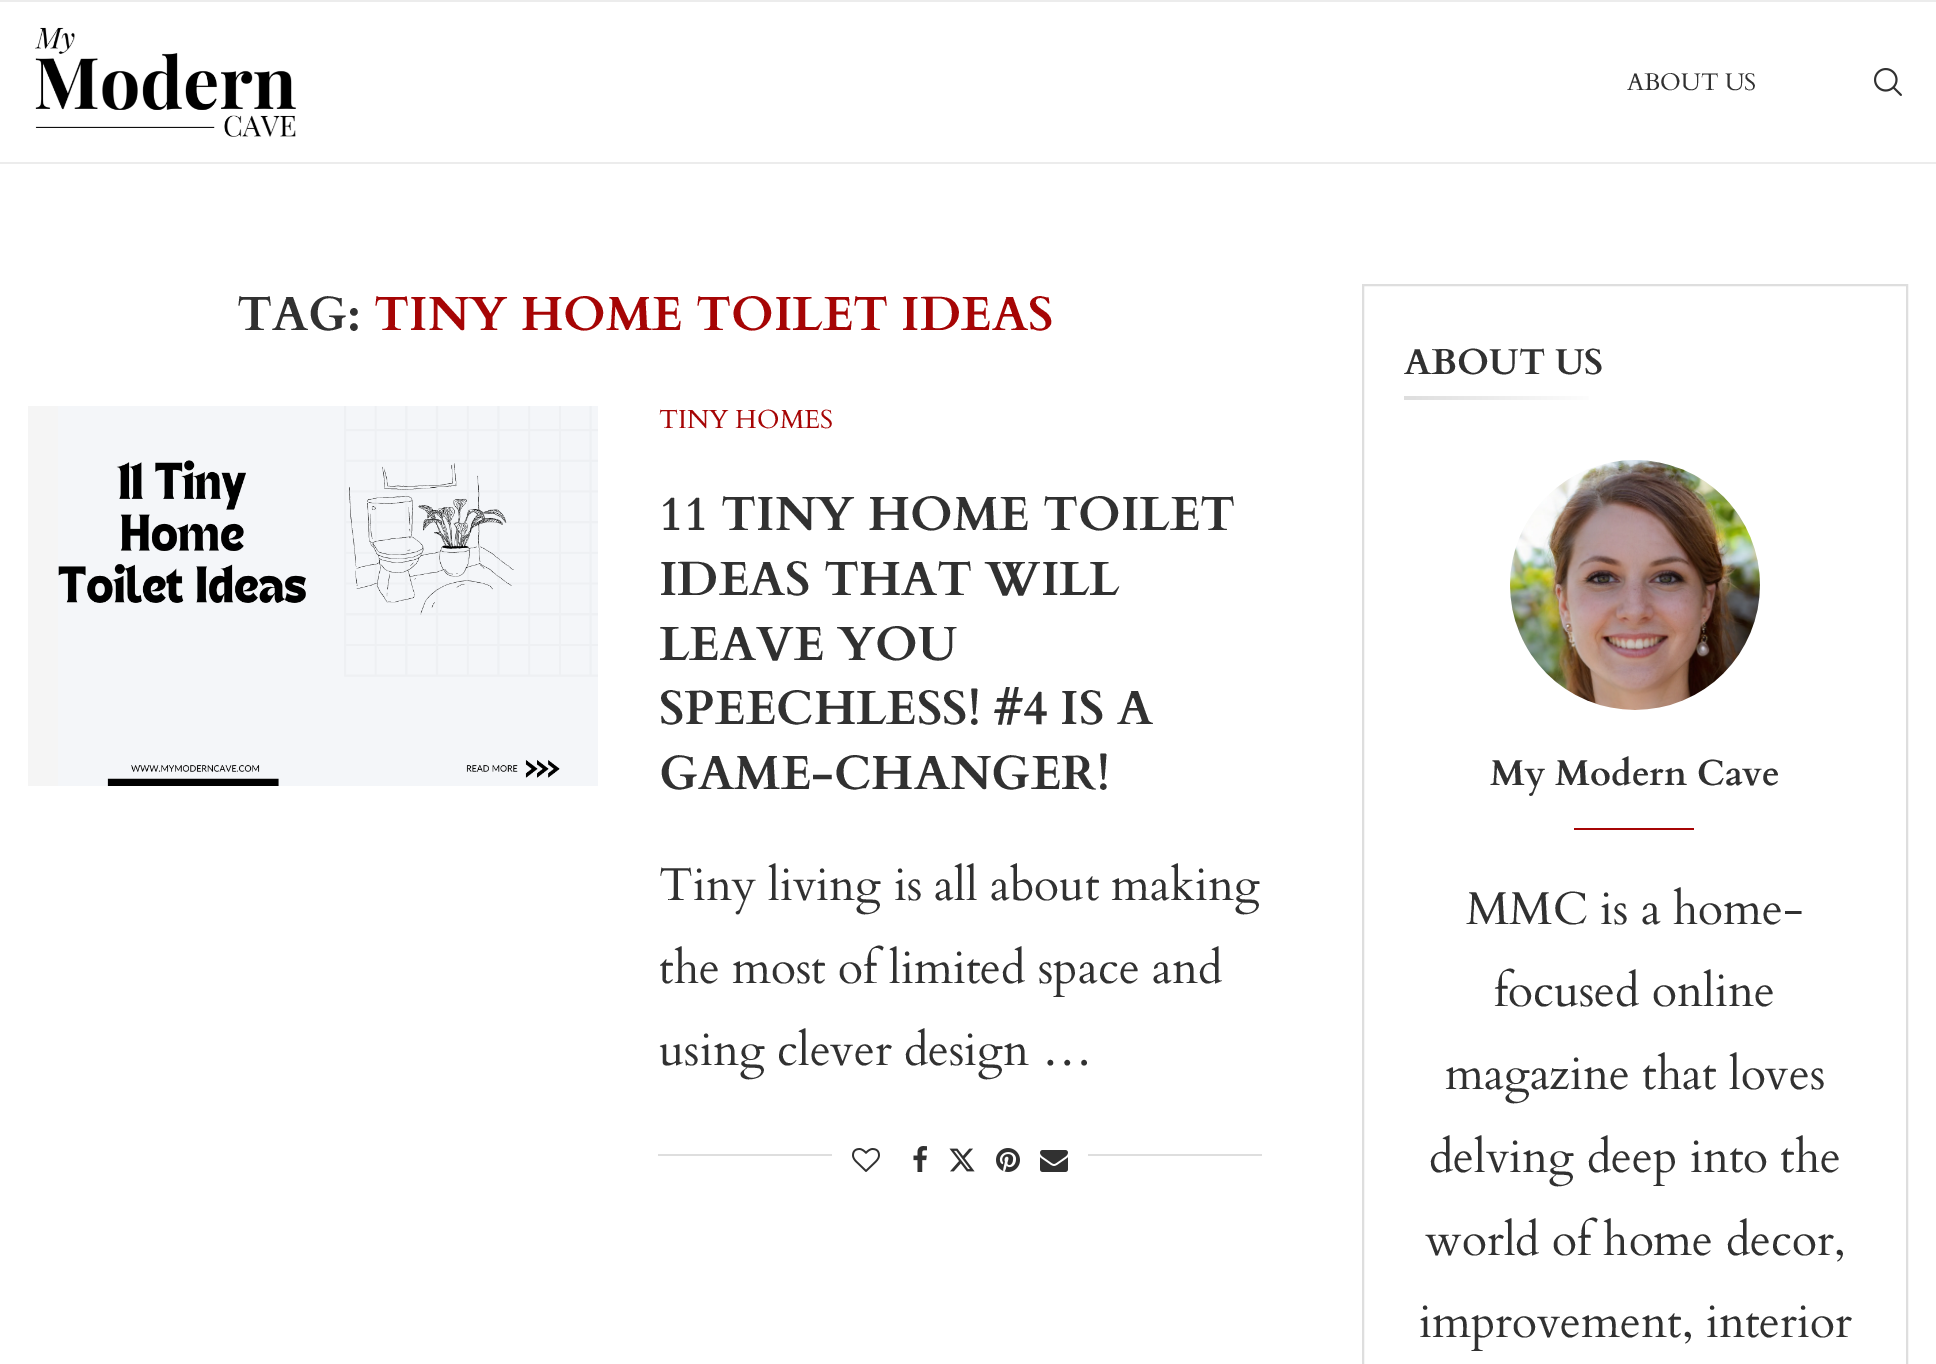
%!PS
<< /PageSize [1936 1364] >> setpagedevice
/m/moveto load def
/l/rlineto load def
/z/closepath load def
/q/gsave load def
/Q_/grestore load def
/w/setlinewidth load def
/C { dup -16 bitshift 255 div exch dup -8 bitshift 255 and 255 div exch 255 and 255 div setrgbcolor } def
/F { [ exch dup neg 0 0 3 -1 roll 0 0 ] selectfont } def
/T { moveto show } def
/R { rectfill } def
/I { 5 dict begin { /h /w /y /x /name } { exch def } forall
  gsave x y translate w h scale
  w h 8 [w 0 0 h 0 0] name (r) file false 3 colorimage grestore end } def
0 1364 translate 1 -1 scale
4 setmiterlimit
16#FFFFFF C
0 0 1936 1364 R
16#ECECEC C
0 0 1936 2 R
0 162 1936 2 R
(1.rgb) 35 27 262 110 I
/Cardo-Regular 24 F
16#313131 C
(ABOUT US) 1627 90 T
(2.rgb) 1874 68 28 28 I
/Cardo-Bold 48 F
(TAG:) 237 330 T
16#A60505 C
(TINY HOME TOILET IDEAS) 374 330 T
16#F5F5F5 C
28 406 30 380 R
(3.rgb) 58 406 540 380 I
/Cardo-Regular 26 F
16#A60505 C
(TINY HOMES) 659 428 T
/Cardo-Bold 48 F
16#313131 C
(11 TINY HOME TOILET) 659 530 T
(IDEAS THAT WILL) 659 595 T
(LEAVE YOU) 659 660 T
(SPEECHLESS! #4 IS A) 659 724 T
(GAME-CHANGER!) 659 789 T
/Cardo-Regular 46 F
(Tiny living is all about making) 659 900 T
(the most of limited space and) 659 983 T
(using clever design …) 659 1065 T
16#DEDEDE C
658 1154 604 2 R
16#FFFFFF C
832 1154 256 2 R
(4.rgb) 852 1148 28 24 I
(5.rgb) 913 1146 14 26 I
(6.rgb) 949 1148 26 24 I
(7.rgb) 996 1148 24 24 I
(8.rgb) 1040 1150 28 22 I
16#DEDEDE C
2 w
1363 285 544 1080 rectstroke
/Cardo-Bold 36 F
16#313131 C
(ABOUT US) 1404 374 T
q 1404 396 m 185 0 l 0 4 l -185 0 l z clip newpath
<< /ShadingType 2 /ColorSpace /DeviceRGB /Coords [1404 398 1604 398] /Extend [true true] /Function << /FunctionType 2 /Domain [0 1] /C0 [.871 .871 .871] /C1 [1 1 1] /N 1 >> >> shfill Q_
(9.rgb) 1510 460 250 250 I
(My Modern Cave) 1490 785 T
16#A60505 C
1574 828 120 2 R
/Cardo-Regular 46 F
16#313131 C
(MMC is a home-) 1466 924 T
(focused online) 1494 1006 T
(magazine that loves) 1445 1089 T
(delving deep into the) 1429 1172 T
(world of home decor,) 1425 1255 T
(improvement, interior) 1419 1337 T
showpage
